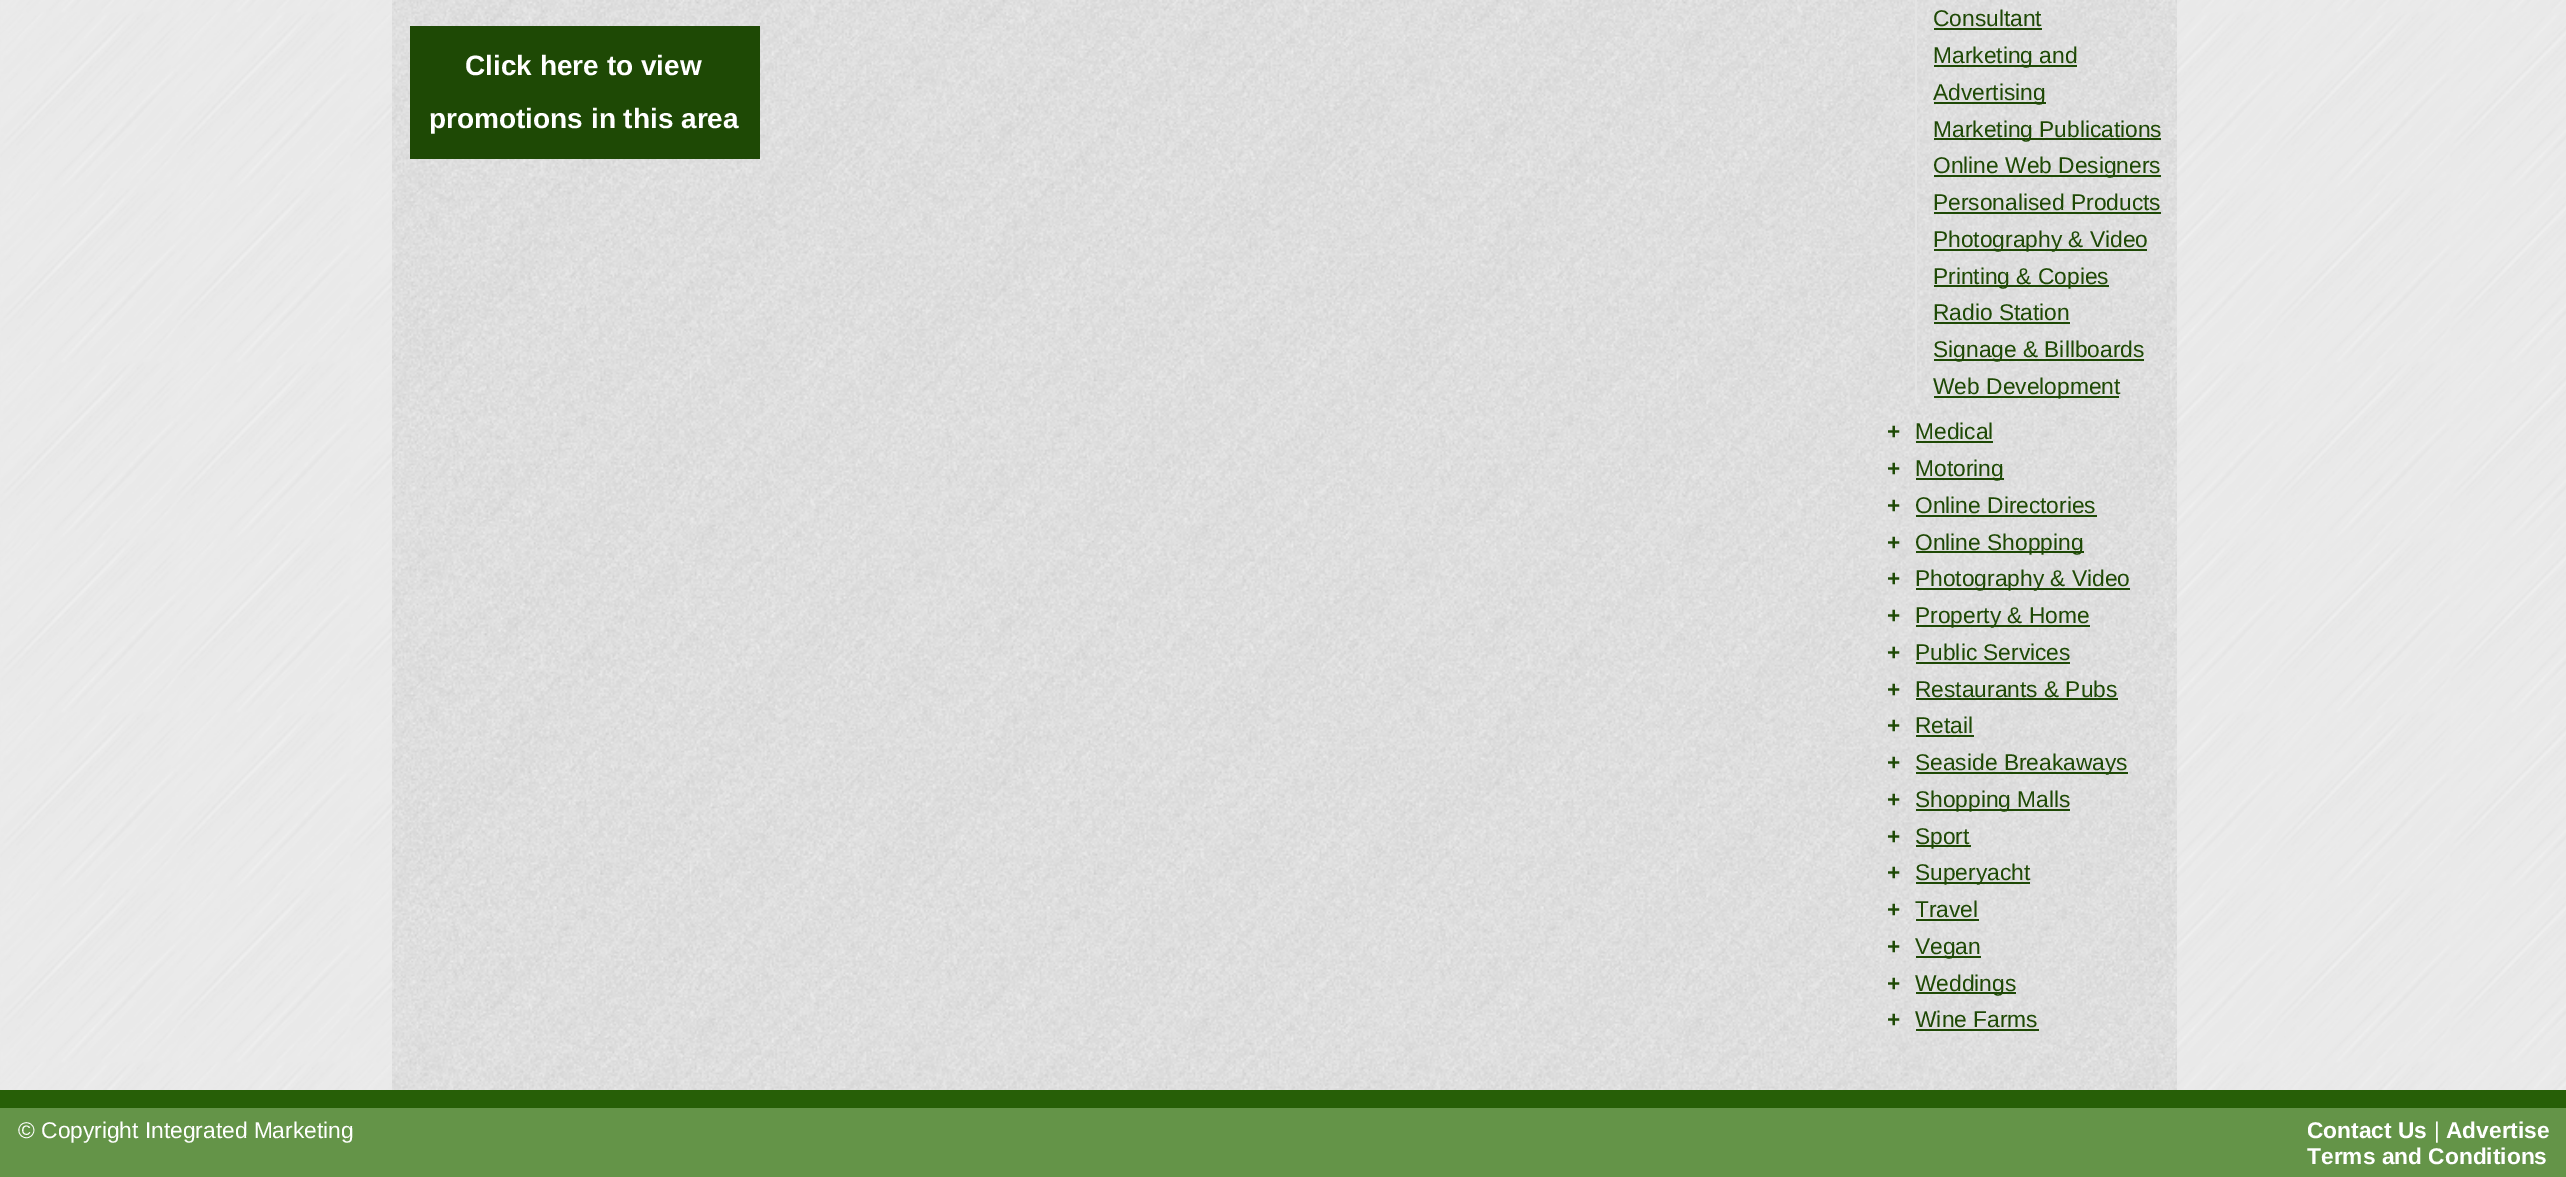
%!PS
<< /PageSize [2566 1177] >> setpagedevice
/C { dup -16 bitshift 255 div exch dup -8 bitshift 255 and 255 div exch 255 and 255 div setrgbcolor } def
/F { [ exch dup neg 0 0 3 -1 roll 0 0 ] selectfont } def
/T { moveto show } def
/R { rectfill } def
/I { 5 dict begin { /h /w /y /x /name } { exch def } forall
  gsave x y translate w h scale
  w h 8 [w 0 0 h 0 0] name (r) file false 3 colorimage grestore end } def
0 1177 translate 1 -1 scale
4 setmiterlimit
16#FFFFFF C
0 0 2566 1177 R
(1.rgb) 0 0 2566 1090 I
(2.rgb) 392 0 1785 1090 I
16#1E4905 C
410 26 350 133 R
/LiberationSans-Bold 28 F
16#FFFFFF C
(Click here to view) 465 75 T
(promotions in this area) 429 128 T
16#E4E4E4 C
1915 0 2 404 R
/LiberationSans-Regular 22.75 F
16#1E4905 C
(Consultant) 1933 26 T
1934 28 108 2 R
1934 65 143 2 R
(Marketing and) 1933 63 T
1934 102 112 2 R
(Advertising) 1933 100 T
1934 138 227 2 R
(Marketing Publications) 1933 137 T
1934 175 227 2 R
(Online Web Designers) 1933 173 T
(Personalised Products) 1933 210 T
1934 212 227 2 R
1934 249 213 2 R
(Photography & Video) 1933 247 T
1934 285 175 2 R
(Printing & Copies) 1933 284 T
(Radio Station) 1933 320 T
1934 322 136 2 R
1934 359 210 2 R
(Signage & Billboards) 1933 357 T
1934 396 185 2 R
(Web Development) 1933 394 T
/LiberationSans-Bold 22.75 F
(+) 1887 439 T
/LiberationSans-Regular 22.75 F
(Medical) 1915 439 T
1916 441 77 2 R
/LiberationSans-Bold 22.75 F
(+) 1887 476 T
1916 478 88 2 R
/LiberationSans-Regular 22.75 F
(Motoring) 1915 476 T
/LiberationSans-Bold 22.75 F
(+) 1887 513 T
/LiberationSans-Regular 22.75 F
(Online Directories) 1915 513 T
1916 515 181 2 R
/LiberationSans-Bold 22.75 F
(+) 1887 550 T
1916 551 168 2 R
/LiberationSans-Regular 22.75 F
(Online Shopping) 1915 550 T
/LiberationSans-Bold 22.75 F
(+) 1887 586 T
1916 588 214 2 R
/LiberationSans-Regular 22.75 F
(Photography & Video) 1915 586 T
/LiberationSans-Bold 22.75 F
(+) 1887 623 T
1916 625 174 2 R
/LiberationSans-Regular 22.75 F
(Property & Home) 1915 623 T
/LiberationSans-Bold 22.75 F
(+) 1887 660 T
/LiberationSans-Regular 22.75 F
(Public Services) 1915 660 T
1916 662 154 2 R
/LiberationSans-Bold 22.75 F
(+) 1887 697 T
/LiberationSans-Regular 22.75 F
(Restaurants & Pubs) 1915 697 T
1916 698 202 2 R
/LiberationSans-Bold 22.75 F
(+) 1887 733 T
/LiberationSans-Regular 22.75 F
(Retail) 1915 733 T
1916 735 58 2 R
/LiberationSans-Bold 22.75 F
(+) 1887 770 T
1916 772 212 2 R
/LiberationSans-Regular 22.75 F
(Seaside Breakaways) 1915 770 T
/LiberationSans-Bold 22.75 F
(+) 1887 807 T
1916 809 154 2 R
/LiberationSans-Regular 22.75 F
(Shopping Malls) 1915 807 T
/LiberationSans-Bold 22.75 F
(+) 1887 844 T
1916 845 55 2 R
/LiberationSans-Regular 22.75 F
(Sport) 1915 844 T
/LiberationSans-Bold 22.75 F
(+) 1887 880 T
1916 882 114 2 R
/LiberationSans-Regular 22.75 F
(Superyacht) 1915 880 T
/LiberationSans-Bold 22.75 F
(+) 1887 917 T
/LiberationSans-Regular 22.75 F
(Travel) 1915 917 T
1916 919 63 2 R
/LiberationSans-Bold 22.75 F
(+) 1887 954 T
1916 956 65 2 R
/LiberationSans-Regular 22.75 F
(Vegan) 1915 954 T
/LiberationSans-Bold 22.75 F
(+) 1887 991 T
1916 992 100 2 R
/LiberationSans-Regular 22.75 F
(Weddings) 1915 991 T
/LiberationSans-Bold 22.75 F
(+) 1887 1027 T
/LiberationSans-Regular 22.75 F
(Wine Farms) 1915 1027 T
1916 1029 123 2 R
16#649448 C
0 1108 2566 69 R
16#275F07 C
0 1090 2566 18 R
16#FFFFFF C
(© Copyright Integrated Marketing) 18 1138 T
/LiberationSans-Bold 22.75 F
(Contact Us) 2307 1138 T
/LiberationSans-Regular 22.75 F
(|) 2434 1138 T
/LiberationSans-Bold 22.75 F
(Advertise) 2446 1138 T
(Terms and Conditions) 2307 1164 T
showpage
